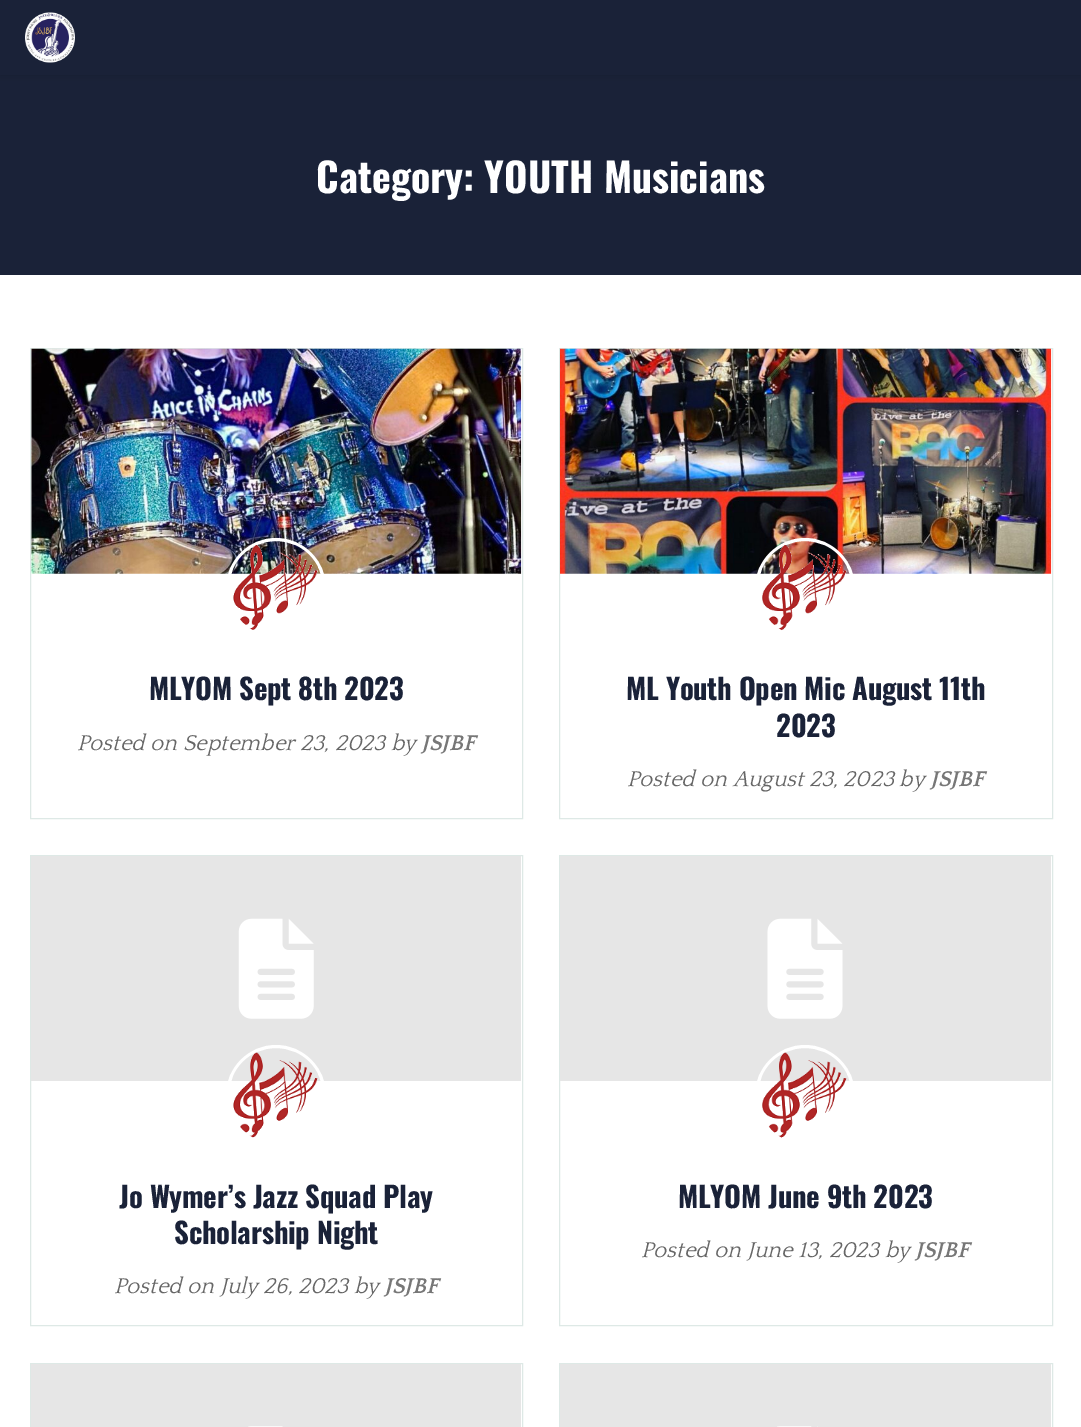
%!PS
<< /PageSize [1081 1427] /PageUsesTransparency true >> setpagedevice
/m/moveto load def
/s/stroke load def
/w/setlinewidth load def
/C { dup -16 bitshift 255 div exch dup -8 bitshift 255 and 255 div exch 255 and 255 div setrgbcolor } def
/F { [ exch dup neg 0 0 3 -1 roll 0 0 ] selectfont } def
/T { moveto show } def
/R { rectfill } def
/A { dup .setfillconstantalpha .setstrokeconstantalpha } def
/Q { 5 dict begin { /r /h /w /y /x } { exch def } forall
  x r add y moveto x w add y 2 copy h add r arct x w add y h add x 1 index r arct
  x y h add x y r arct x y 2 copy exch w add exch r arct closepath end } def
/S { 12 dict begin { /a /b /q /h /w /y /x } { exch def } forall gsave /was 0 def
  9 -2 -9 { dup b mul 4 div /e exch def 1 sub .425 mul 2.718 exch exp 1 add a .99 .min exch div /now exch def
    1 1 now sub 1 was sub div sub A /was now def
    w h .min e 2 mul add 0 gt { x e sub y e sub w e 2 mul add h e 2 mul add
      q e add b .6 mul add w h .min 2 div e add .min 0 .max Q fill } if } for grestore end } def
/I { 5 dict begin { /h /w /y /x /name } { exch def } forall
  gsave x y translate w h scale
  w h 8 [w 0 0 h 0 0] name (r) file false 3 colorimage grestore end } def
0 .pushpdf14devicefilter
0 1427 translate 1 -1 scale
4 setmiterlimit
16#FFFFFF C
0 0 1081 1427 R
16#1A2238 C
0 75 1081 200 R
16#000000 C
0 0 1081 75 0 5 .15 S
16#1A2238 C
0 0 1081 75 R
(1.rgb) 25 12 50 51 I
/Oswald-Bold 40 F
16#FFFFFF C
(Category: YOUTH Musicians) 316 193 T
16#DEE9E6 C
30.5 348.5 492 470 rectstroke
(2.rgb) 31 348 491 226 I
16#FFFFFF C
3 w
227.5 539.5 97 98 48.5 Q s
(3.rgb) 233 545 85 85 I
/Oswald-Bold 28.75 F
16#1A2238 C
149 700 m -.25 0 (MLYOM Sept 8th 2023) ashow
/Quattrocento-Italic 22.5 F
16#666666 C
(Posted on September 23, 2023 by) 77 750 T
/Quattrocento-BoldItalic 22.5 F
16#777777 C
(JSJBF) 421 750 T
16#DEE9E6 C
1 w
559.5 348.5 493 470 rectstroke
(4.rgb) 560 348 492 226 I
16#FFFFFF C
3 w
756.5 539.5 97 98 48.5 Q s
(5.rgb) 762 545 85 86 I
/Oswald-Bold 28.75 F
16#1A2238 C
626 700 m -.25 0 (ML Youth Open Mic August 11th) ashow
776 737 m -.25 0 (2023) ashow
/Quattrocento-Italic 22.5 F
16#666666 C
(Posted on August 23, 2023 by) 627 786 T
/Quattrocento-BoldItalic 22.5 F
16#777777 C
(JSJBF) 930 786 T
16#DEE9E6 C
1 w
30.5 855.5 492 470 rectstroke
16#E6E6E6 C
31 856 490 225 R
(6.rgb) 238 918 76 101 I
16#FFFFFF C
3 w
227.5 1046.5 97 98 48.5 Q s
(7.rgb) 233 1052 85 86 I
/Oswald-Bold 28.75 F
16#1A2238 C
119 1208 m -.25 0 (Jo Wymer’s Jazz Squad Play) ashow
174 1244 m -.25 0 (Scholarship Night) ashow
/Quattrocento-Italic 22.5 F
16#666666 C
(Posted on July 26, 2023 by) 114 1293 T
/Quattrocento-BoldItalic 22.5 F
16#777777 C
(JSJBF) 384 1293 T
16#DEE9E6 C
1 w
559.5 855.5 493 470 rectstroke
16#E6E6E6 C
560 856 491 225 R
(8.rgb) 767 918 76 101 I
16#FFFFFF C
3 w
756.5 1046.5 97 98 48.5 Q s
(9.rgb) 762 1052 85 86 I
/Oswald-Bold 28.75 F
16#1A2238 C
678 1208 m -.25 0 (MLYOM June 9th 2023) ashow
/Quattrocento-Italic 22.5 F
16#666666 C
(Posted on June 13, 2023 by) 641 1257 T
/Quattrocento-BoldItalic 22.5 F
16#777777 C
(JSJBF) 915 1257 T
16#DEE9E6 C
1 w
30.5 1363.5 492 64 rectstroke
16#E6E6E6 C
31 1364 490 63 R
(10.rgb) 248 1426 35 1 I
16#DEE9E6 C
559.5 1363.5 493 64 rectstroke
16#E6E6E6 C
560 1364 491 63 R
(11.rgb) 777 1426 41 1 I
.poppdf14devicefilter showpage
